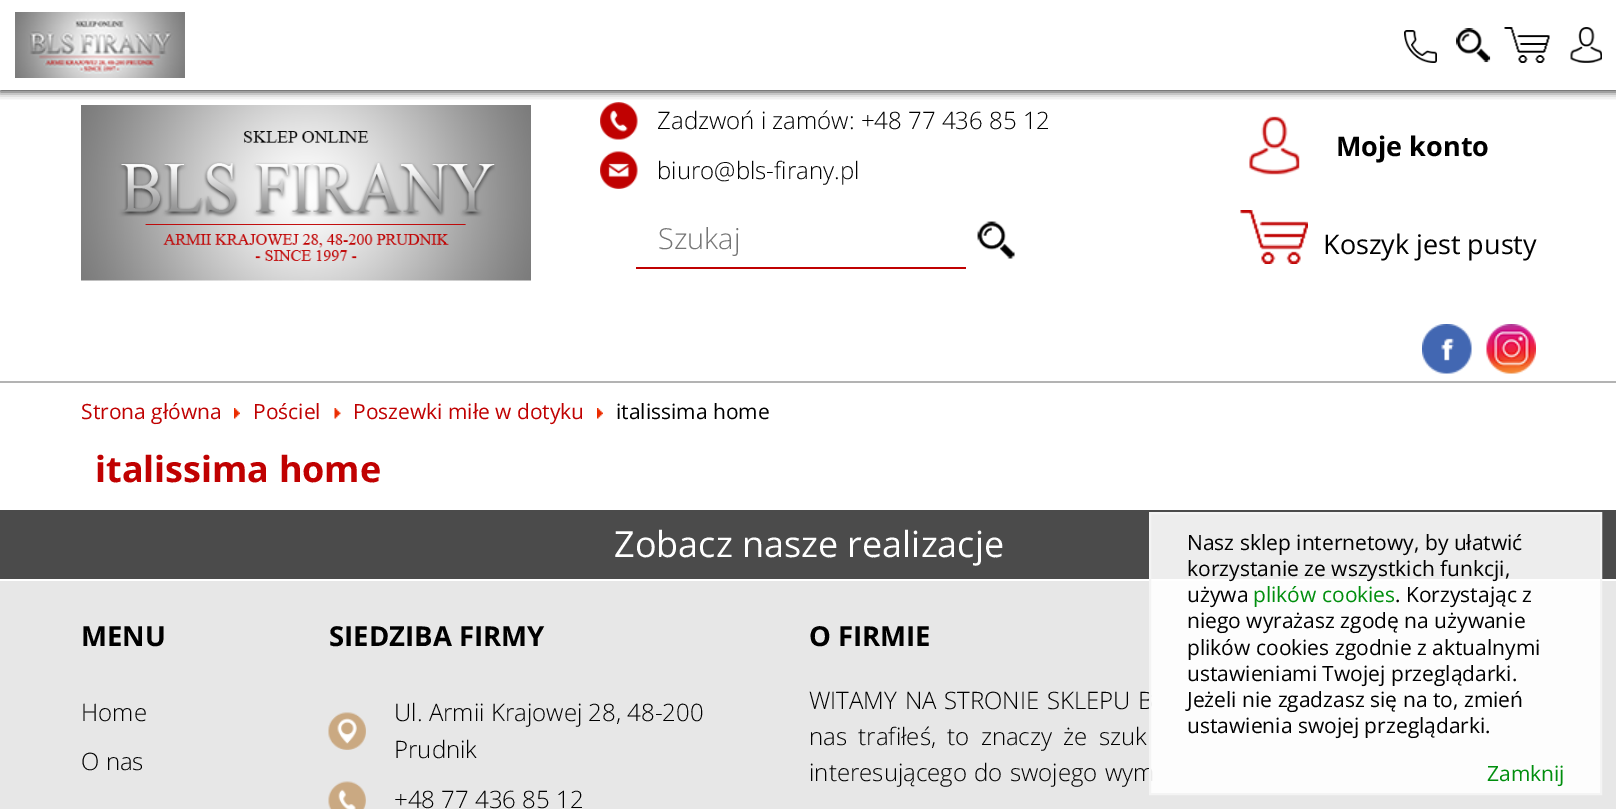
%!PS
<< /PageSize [1616 809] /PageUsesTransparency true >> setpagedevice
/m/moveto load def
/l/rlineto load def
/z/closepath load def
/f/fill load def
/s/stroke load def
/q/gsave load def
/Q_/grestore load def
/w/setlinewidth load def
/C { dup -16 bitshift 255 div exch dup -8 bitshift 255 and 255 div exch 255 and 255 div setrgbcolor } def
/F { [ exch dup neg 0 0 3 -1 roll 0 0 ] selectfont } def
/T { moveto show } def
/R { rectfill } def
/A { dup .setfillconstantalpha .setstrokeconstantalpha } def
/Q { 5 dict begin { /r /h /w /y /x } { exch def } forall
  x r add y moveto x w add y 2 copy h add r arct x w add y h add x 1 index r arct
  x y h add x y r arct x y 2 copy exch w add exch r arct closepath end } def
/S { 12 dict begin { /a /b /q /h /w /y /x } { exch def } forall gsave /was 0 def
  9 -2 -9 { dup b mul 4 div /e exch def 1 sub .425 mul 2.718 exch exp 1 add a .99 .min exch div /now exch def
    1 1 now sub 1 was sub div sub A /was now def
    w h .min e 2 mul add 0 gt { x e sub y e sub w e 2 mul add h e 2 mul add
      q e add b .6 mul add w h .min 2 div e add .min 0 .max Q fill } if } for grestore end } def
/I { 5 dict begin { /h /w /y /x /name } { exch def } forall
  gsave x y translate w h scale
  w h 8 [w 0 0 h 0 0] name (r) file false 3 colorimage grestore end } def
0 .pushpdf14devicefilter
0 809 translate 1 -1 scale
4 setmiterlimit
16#FFFFFF C
0 0 1616 809 R
(7.rgb) 600 102 38 38 I
q
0 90 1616 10 rectclip
16#000000 C
0 2 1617 90 0 4 .75 S
Q_
(1.rgb) 15 12 170 66 I
(2.rgb) 1404 30 33 33 I
(3.rgb) 1456 28 35 35 I
(4.rgb) 1504 27 46 36 I
(5.rgb) 1570 27 32 36 I
(6.rgb) 81 105 450 176 I
/OpenSans-Light 24 F
16#000000 C
(Zadzwoń i zamów: +48 77 436 85 12) 657 129 T
(8.rgb) 600 151 38 38 I
(biuro@bls-firany.pl) 657 179 T
(9.rgb) 1249 116 51 59 I
/OpenSans-Bold 27 F
(Moje konto) 1336 156 T
(10.rgb) 1240 210 68 54 I
/OpenSans-Regular 27 F
(Koszyk jest pusty) 1323 254 T
16#C00101 C
636 267 330 2 R
/OpenSans-Light 29 F
16#757575 C
(Szukaj) 658 249 T
(11.rgb) 977 221 38 38 I
16#B3B3B3 C
0 381 1616 2 R
(12.rgb) 1422 324 50 50 I
(13.rgb) 1486 324 50 50 I
/OpenSans-Regular 21 F
16#C00101 C
(Strona główna) 81 419 T
(14.rgb) 234 408 6 11 I
(Pościel) 253 419 T
(15.rgb) 334 408 7 11 I
(Poszewki miłe w dotyku) 353 419 T
(16.rgb) 597 408 6 11 I
16#000000 C
(italissima home) 616 419 T
/OpenSans-Bold 36 F
16#C00101 C
(italissima home) 95 482 T
16#4B4B4B C
0 510 1616 69 R
/OpenSans-Regular 36 F
16#FFFFFF C
(Zobacz nasze realizacje) 614 557 T
16#E7E7E7 C
0 581 1616 228 R
/OpenSans-Light 24 F
16#000000 C
809 709 m 1.5 0 32 (WITAMY NA STRONIE SKLEPU B) widthshow
809 781 m 1 0 32 (interesującego do swojego wym) widthshow
0.9 A
16#FFFFFF C
1150 513 m 451 0 l 0 281 l -451 0 l z f
1 A
16#F4F4F4 C
2 w
1150 513 m 451 0 l 0 281 l -451 0 l z s
/OpenSans-Regular 21 F
16#000000 C
(Nasz sklep internetowy, by ułatwić) 1187 550 T
(korzystanie ze wszystkich funkcji,) 1187 576 T
(używa) 1187 602 T
16#008E0D C
(plików cookies) 1253 602 T
16#000000 C
(. Korzystając z) 1395 602 T
(niego wyrażasz zgodę na używanie) 1187 628 T
(plików cookies zgodnie z aktualnymi) 1187 655 T
(ustawieniami Twojej przeglądarki.) 1187 681 T
(Jeżeli nie zgadzasz się na to, zmień) 1187 707 T
(ustawienia swojej przeglądarki.) 1187 733 T
16#008E0D C
(Zamknij) 1487 781 T
/OpenSans-Bold 27.5 F
16#000000 C
(MENU) 81 646 T
/OpenSans-Light 24 F
(Home) 81 721 T
(O nas) 81 770 T
/OpenSans-Bold 27.5 F
(SIEDZIBA FIRMY) 329 646 T
(17.rgb) 328 712 38 38 I
/OpenSans-Light 24 F
(Ul. Armii Krajowej 28, 48-200) 394 721 T
(Prudnik) 394 758 T
(18.rgb) 328 781 38 28 I
(+48 77 436 85 12) 394 808 T
/OpenSans-Bold 27.5 F
(O FIRMIE) 809 646 T
/OpenSans-Light 24 F
809 745 m 5 0 32 (nas trafiłeś, to znaczy że szuk) widthshow
.poppdf14devicefilter showpage
